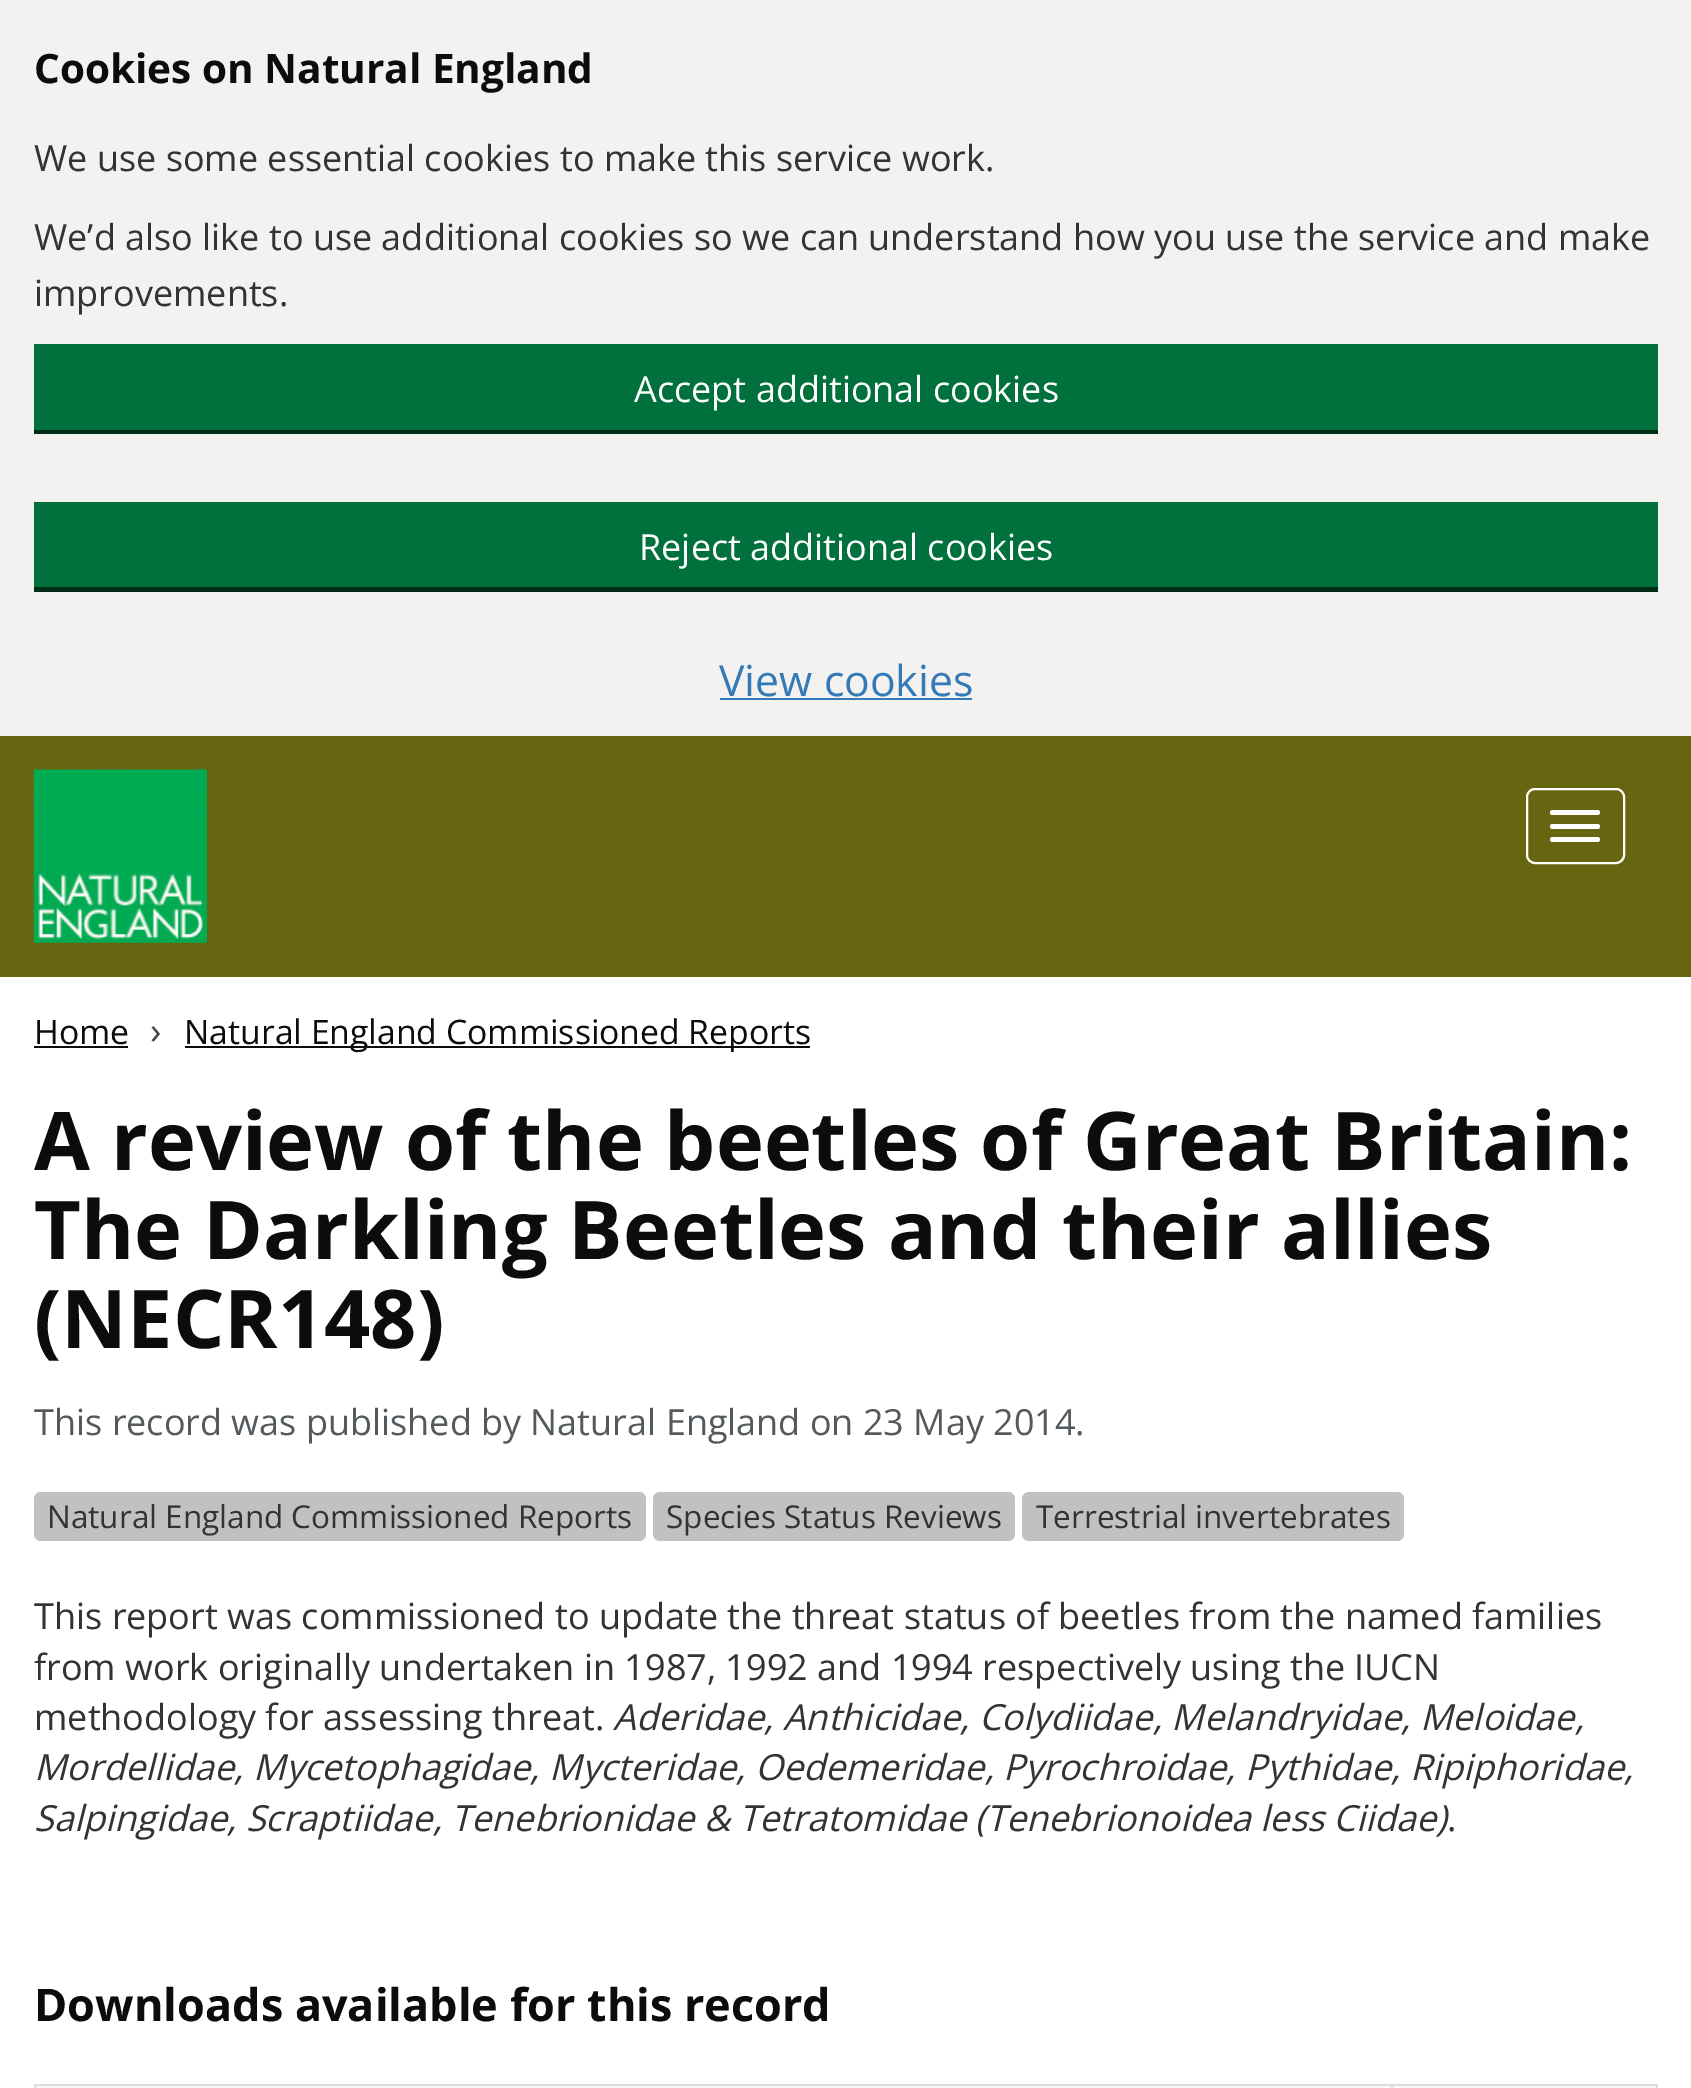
%!PS
<< /PageSize [1691 2088] >> setpagedevice
/f/fill load def
/s/stroke load def
/w/setlinewidth load def
/C { dup -16 bitshift 255 div exch dup -8 bitshift 255 and 255 div exch 255 and 255 div setrgbcolor } def
/F { [ exch dup neg 0 0 3 -1 roll 0 0 ] selectfont } def
/T { moveto show } def
/R { rectfill } def
/Q { 5 dict begin { /r /h /w /y /x } { exch def } forall
  x r add y moveto x w add y 2 copy h add r arct x w add y h add x 1 index r arct
  x y h add x y r arct x y 2 copy exch w add exch r arct closepath end } def
/I { 5 dict begin { /h /w /y /x /name } { exch def } forall
  gsave x y translate w h scale
  w h 8 [w 0 0 h 0 0] name (r) file false 3 colorimage grestore end } def
0 2088 translate 1 -1 scale
4 setmiterlimit
16#FFFFFF C
0 0 1691 2088 R
16#F3F2F1 C
0 0 1691 736 R
/OpenSans-Bold 40.5 F
16#0B0C0C C
(Cookies on Natural England) 34 83 T
/OpenSans-Regular 36 F
16#333333 C
(We use some essential cookies to make this service work.) 34 171 T
(We’d also like to use additional cookies so we can understand how you use the service and make) 34 250 T
(improvements.) 34 306 T
16#002D18 C
34 430 1624 4 R
16#00703C C
34 344 1624 86 R
16#FFFFFF C
(Accept additional cookies) 634 402 T
16#002D18 C
34 587 1624 5 R
16#00703C C
34 502 1624 85 R
16#FFFFFF C
(Reject additional cookies) 639 560 T
/OpenSans-Regular 42.75 F
16#337AB7 C
(View cookies) 719 696 T
720 698 252 2 R
16#67650F C
0 736 1691 241 R
(1.rgb) 33 769 174 174 I
16#FFFFFF C
2 w
1527 789 97 74 8 Q s
1550 810 50 5 2.5 Q f
1550 824 50 5 2.5 Q f
1550 837 50 5 2.5 Q f
/OpenSans-Regular 33.75 F
16#0B0C0C C
(Home) 34 1044 T
34 1046 94 2 R
/OpenSans-Regular 38 F
16#42474A C
(›) 150 1044 T
16#0B0C0C C
185 1046 625 2 R
/OpenSans-Regular 33.75 F
(Natural England Commissioned Reports) 184 1044 T
/OpenSans-Bold 81 F
(A review of the beetles of Great Britain:) 34 1170 T
(The Darkling Beetles and their allies) 34 1259 T
(\(NECR148\)) 34 1348 T
/OpenSans-Regular 36 F
16#53595C C
(This record was published by Natural England on 23 May 2014.) 34 1435 T
16#BFC1C3 C
34 1492 612 49 7 Q f
/OpenSans-Regular 31.5 F
16#333333 C
(Natural England Commissioned Reports) 47 1528 T
16#BFC1C3 C
653 1492 362 49 7 Q f
16#333333 C
(Species Status Reviews) 666 1528 T
16#BFC1C3 C
1022 1492 382 49 7 Q f
16#333333 C
(Terrestrial invertebrates) 1036 1528 T
/OpenSans-Regular 36 F
(This report was commissioned to update the threat status of beetles from the named families) 34 1629 T
(from work originally undertaken in 1987, 1992 and 1994 respectively using the IUCN) 34 1680 T
(methodology for assessing threat.) 34 1730 T
/OpenSans-Italic 36 F
(Aderidae, Anthicidae, Colydiidae, Melandryidae, Meloidae,) 613 1730 T
(Mordellidae, Mycetophagidae, Mycteridae, Oedemeridae, Pyrochroidae, Pythidae, Ripiphoridae,) 34 1780 T
(Salpingidae, Scraptiidae, Tenebrionidae & Tetratomidae \(Tenebrionoidea less Ciidae\)) 34 1831 T
/OpenSans-Regular 36 F
(.) 1447 1831 T
/OpenSans-Bold 45 F
16#0B0C0C C
(Downloads available for this record) 34 2021 T
16#DDDDDD C
34 2084 1624 2 R
16#F8F8F8 C
36 2086 1622 2 R
16#DDDDDD C
1656 2084 2 4 R
34 2084 2 4 R
1391 2084 2 4 R
showpage
